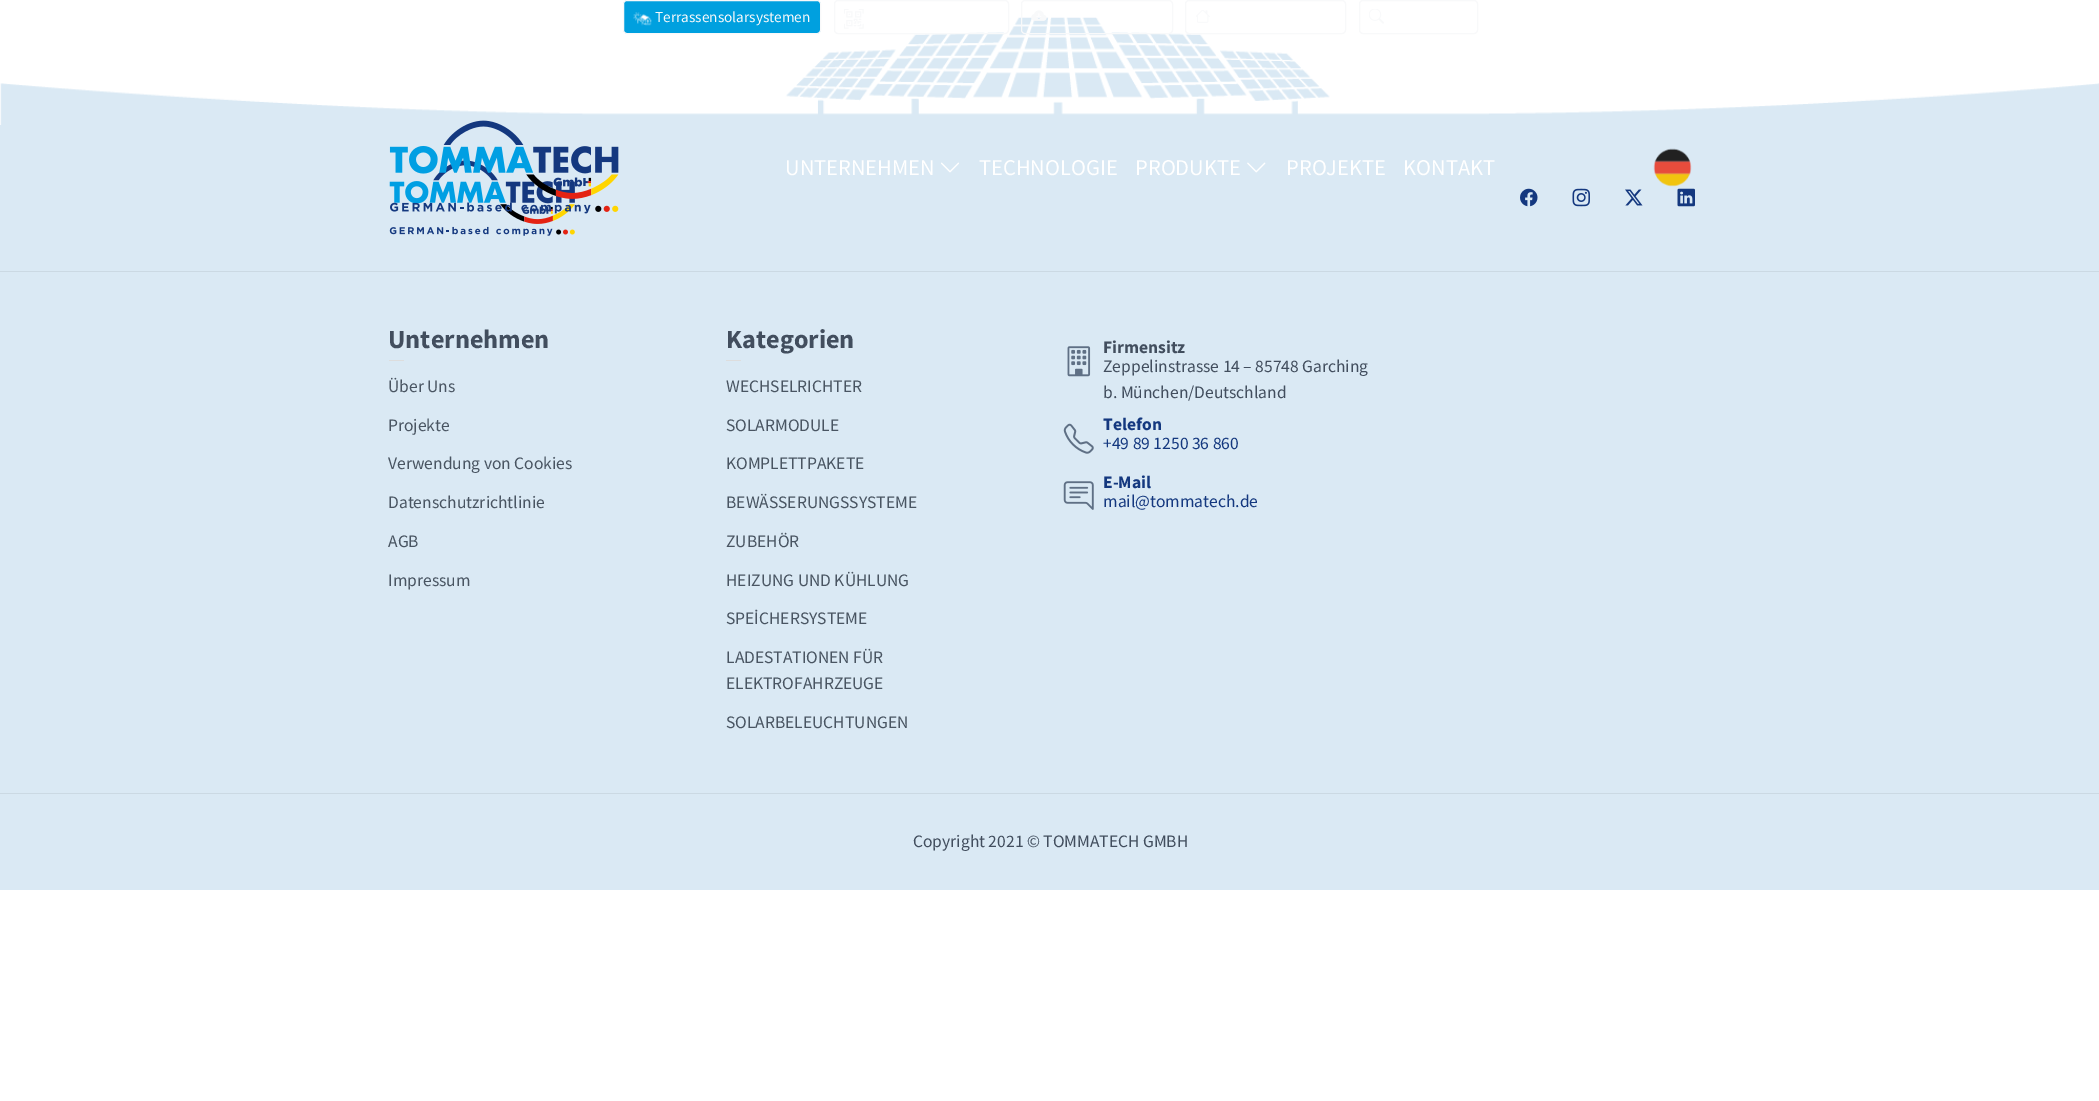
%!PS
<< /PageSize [2099 1101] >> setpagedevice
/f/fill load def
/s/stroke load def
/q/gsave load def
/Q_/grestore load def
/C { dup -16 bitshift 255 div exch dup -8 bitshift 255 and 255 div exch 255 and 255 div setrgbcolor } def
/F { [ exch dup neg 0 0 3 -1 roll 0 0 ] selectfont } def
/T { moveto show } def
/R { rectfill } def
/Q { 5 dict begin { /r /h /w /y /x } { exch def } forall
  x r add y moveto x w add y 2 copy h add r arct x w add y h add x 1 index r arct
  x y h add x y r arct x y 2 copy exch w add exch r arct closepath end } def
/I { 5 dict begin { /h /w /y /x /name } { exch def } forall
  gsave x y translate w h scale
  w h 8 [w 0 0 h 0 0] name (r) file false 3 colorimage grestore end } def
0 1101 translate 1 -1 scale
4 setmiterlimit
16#FFFFFF C
0 0 2099 1101 R
(10.rgb) 0 17 2099 108 I
16#00A0DF C
623.5 .5 197 33 3.5 Q q f Q_
16#F8F9FA C
s
(1.rgb) 633 12 19 14 I
/SourceSansPro-Regular 15.25 F
(Terrassensolarsystemen) 655 22 T
834.5 .5 174 33 3.5 Q s
(2.rgb) 844 9 20 20 I
1021.5 .5 151 33 3.5 Q s
(3.rgb) 1031 10 16 11 I
1185.5 .5 160 33 3.5 Q s
(4.rgb) 1196 10 14 13 I
1359.5 .5 118 33 3.5 Q s
(5.rgb) 1369 9 15 15 I
16#DAE9F4 C
0 125 2099 668 R
(11.rgb) 389 160 186 76 I
(6.rgb) 389 120 230 94 I
/SourceSansPro-Regular 22.5 F
16#FFFFFF C
(UNTERNEHMEN) 785 175 T
(7.rgb) 941 162 18 11 I
(TECHNOLOGIE) 979 175 T
(PRODUKTE) 1135 175 T
(8.rgb) 1247 162 19 11 I
(PROJEKTE) 1286 175 T
(KONTAKT) 1403 175 T
(9.rgb) 1653 148 39 39 I
16#CBD9E3 C
0 271 2099 1 R
(12.rgb) 1520 188 18 19 I
(13.rgb) 1572 188 18 19 I
(14.rgb) 1625 189 18 17 I
(15.rgb) 1677 188 18 19 I
/SourceSansPro-Bold 26.25 F
16#424E5E C
(Unternehmen) 388 348 T
16#DDDDDD C
389 360 15 1 R
/SourceSansPro-Regular 17.5 F
16#495562 C
(Über Uns) 388 392 T
(Projekte) 388 431 T
(Verwendung von Cookies) 388 469 T
(Datenschutzrichtlinie) 388 508 T
(AGB) 388 547 T
(Impressum) 388 586 T
/SourceSansPro-Bold 26.25 F
16#424E5E C
(Kategorien) 726 348 T
16#DDDDDD C
726 360 15 1 R
/SourceSansPro-Regular 17.5 F
16#495562 C
(WECHSELRICHTER) 726 392 T
(SOLARMODULE) 726 431 T
(KOMPLETTPAKETE) 726 469 T
(BEWÄSSERUNGSSYSTEME) 726 508 T
(ZUBEHÖR) 726 547 T
(HEIZUNG UND KÜHLUNG) 726 586 T
(SPEİCHERSYSTEME) 726 624 T
(LADESTATIONEN FÜR) 726 663 T
(ELEKTROFAHRZEUGE) 726 689 T
(SOLARBELEUCHTUNGEN) 726 728 T
(16.rgb) 1067 346 24 31 I
/SourceSansPro-Bold 17.5 F
16#424E5E C
(Firmensitz) 1103 353 T
/SourceSansPro-Regular 17.5 F
(Zeppelinstrasse 14 – 85748 Garching) 1103 372 T
(b. München/Deutschland) 1103 398 T
(17.rgb) 1063 423 31 31 I
/SourceSansPro-Bold 17.5 F
16#14387F C
(Telefon) 1103 430 T
/SourceSansPro-Regular 17.5 F
(+49 89 1250 36 860) 1103 449 T
(18.rgb) 1063 481 31 29 I
/SourceSansPro-Bold 17.5 F
(E-Mail) 1103 488 T
/SourceSansPro-Regular 17.5 F
(mail@tommatech.de) 1103 507 T
16#DAE9F4 C
0 794 2099 96 R
16#CBD9E3 C
0 793 2099 1 R
16#424E5E C
(Copyright 2021 © TOMMATECH GMBH) 913 847 T
showpage
